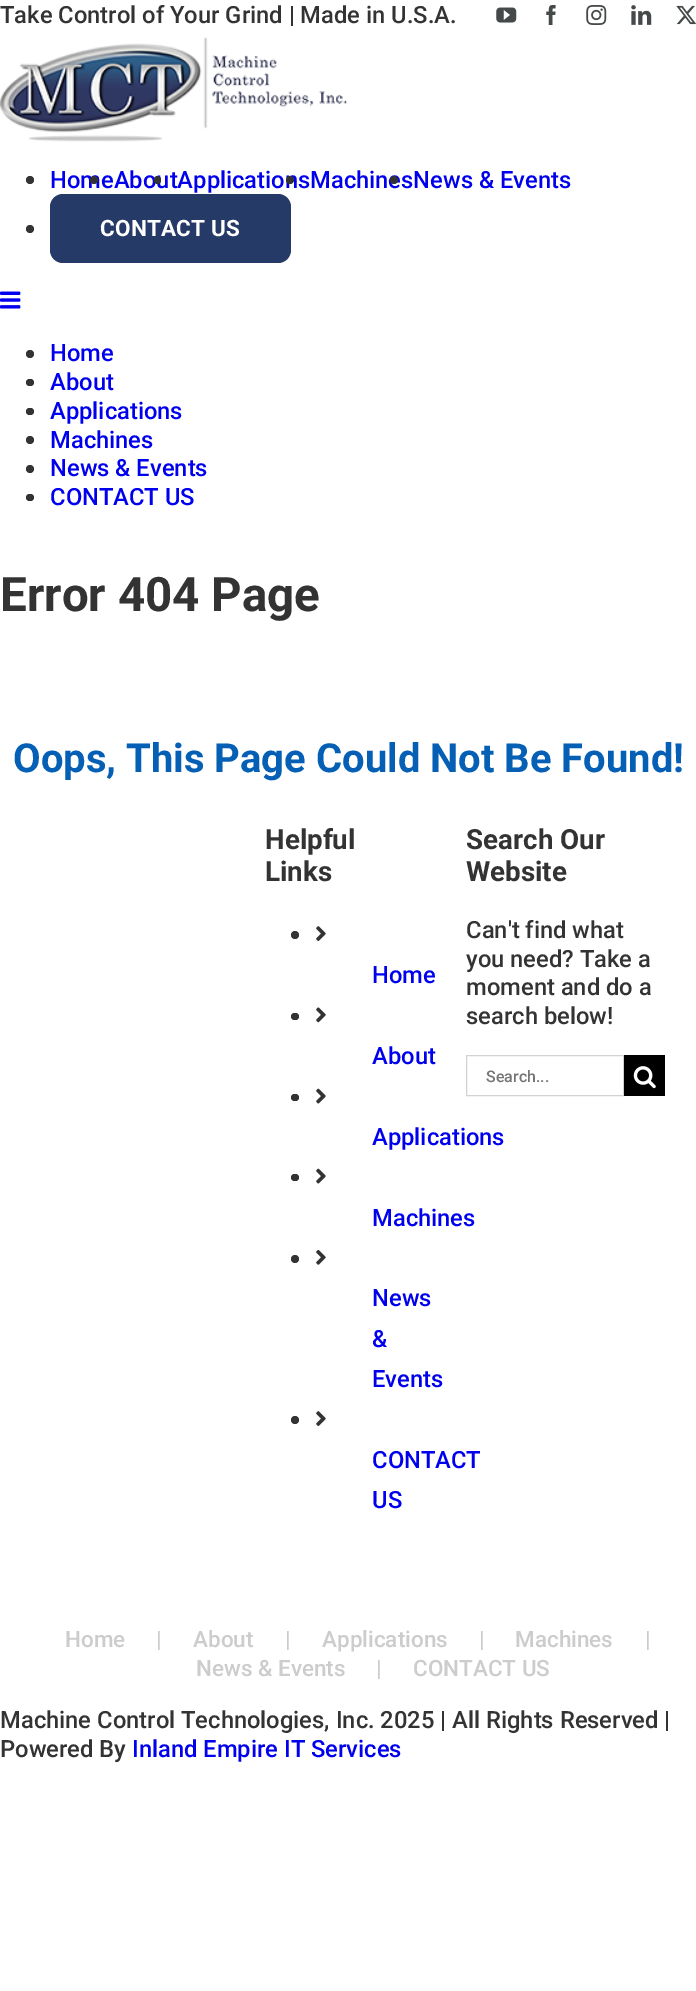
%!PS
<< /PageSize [696 1991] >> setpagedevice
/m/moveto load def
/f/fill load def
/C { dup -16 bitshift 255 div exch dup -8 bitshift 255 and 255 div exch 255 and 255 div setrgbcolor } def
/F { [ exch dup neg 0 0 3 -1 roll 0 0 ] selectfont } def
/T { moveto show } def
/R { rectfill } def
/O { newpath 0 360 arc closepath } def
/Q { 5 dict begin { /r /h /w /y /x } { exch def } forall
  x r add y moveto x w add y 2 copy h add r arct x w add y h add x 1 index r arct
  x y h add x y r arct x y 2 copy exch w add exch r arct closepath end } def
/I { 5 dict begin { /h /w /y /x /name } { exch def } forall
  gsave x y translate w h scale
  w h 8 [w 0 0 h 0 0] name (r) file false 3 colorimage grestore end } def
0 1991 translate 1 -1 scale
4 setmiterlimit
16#FFFFFF C
0 0 696 1991 R
/Roboto-Medium 23.75 F
16#333333 C
(Take Control of Your Grind | Made in U.S.A.) 0 23 T
(1.rgb) 496 7 21 16 I
(2.rgb) 546 5 10 20 I
(3.rgb) 586 5 21 20 I
(4.rgb) 631 5 21 20 I
(5.rgb) 676 5 20 20 I
(6.rgb) 0 37 347 105 I
30 180 4 O f
16#0000EE C
(HomeAboutApplicationsMachinesNews & Events) 50 188 T
16#333333 C
94 180 4 O f
154 176 7 8 3.5 Q f
290 180 4 O f
394 180 4 O f
30 229 4 O f
16#263A68 C
50 194 241 69 13 Q f
/Roboto-Bold 22.5 F
16#FFFFFF C
100 236 m .25 0 (CONTACT US) ashow
(7.rgb) 0 291 21 18 I
16#333333 C
30 354 4 O f
/Roboto-Medium 23.75 F
16#0000EE C
(Home) 50 361 T
16#333333 C
26 379 8 7 3.5 Q f
16#0000EE C
(About) 50 390 T
16#333333 C
26 408 8 7 3.5 Q f
16#0000EE C
(Applications) 50 419 T
16#333333 C
30 440 4 O f
16#0000EE C
(Machines) 50 448 T
16#333333 C
30 469 4 O f
16#0000EE C
(News & Events) 50 476 T
16#333333 C
26 494 8 7 3.5 Q f
16#0000EE C
(CONTACT US) 50 505 T
/Roboto-Bold 47.5 F
16#333333 C
(Error 404 Page) 0 611 T
/Roboto-Bold 40 F
16#0560B5 C
(Oops, This Page Could Not Be Found!) 13 772 T
/Roboto-Bold 27.75 F
16#333333 C
(Helpful) 265 849 T
(Links) 265 881 T
295 935 4 O f
(8.rgb) 316 926 10 15 I
/Roboto-Medium 23.75 F
16#0000EE C
(Home) 372 983 T
16#333333 C
291 1013 8 7 3.5 Q f
(9.rgb) 316 1007 10 16 I
16#0000EE C
(About) 372 1064 T
16#333333 C
291 1094 8 7 3.5 Q f
(10.rgb) 316 1088 10 16 I
16#0000EE C
(Applications) 372 1145 T
16#333333 C
291 1174 8 7 3.5 Q f
(10.rgb) 316 1168 10 16 I
16#0000EE C
(Machines) 372 1226 T
16#333333 C
295 1259 4 O f
(11.rgb) 316 1249 10 16 I
16#0000EE C
(News) 372 1306 T
(&) 372 1347 T
(Events) 372 1387 T
16#333333 C
295 1420 4 O f
(8.rgb) 316 1411 10 15 I
16#0000EE C
(CONTACT) 372 1468 T
(US) 372 1508 T
/Roboto-Bold 27.75 F
16#333333 C
(Search Our) 466 849 T
(Website) 466 881 T
/Roboto-Medium 23.75 F
(Can't find what) 466 938 T
(you need? Take a) 466 967 T
(moment and do a) 466 995 T
(search below!) 466 1024 T
16#D2D2D2 C
466.5 1055.5 157 40 rectstroke
/Roboto-Medium 16 F
16#757575 C
(Search...) 486 1082 T
16#000000 C
624 1055 41 41 R
(12.rgb) 633 1066 23 23 I
/Roboto-Medium 22.5 F
16#CCCCCC C
(Home) 65 1647 T
(|) 156 1647 T
(About) 193 1647 T
(|) 285 1647 T
(Applications) 322 1647 T
(|) 479 1647 T
(Machines) 515 1647 T
(|) 645 1647 T
(News & Events) 196 1676 T
(|) 376 1676 T
(CONTACT US) 413 1676 T
/Roboto-Medium 23.75 F
16#333333 C
(Machine Control Technologies, Inc. 2025 | All Rights Reserved |) 0 1728 T
(Powered By) 0 1757 T
16#0000EE C
(Inland Empire IT Services) 132 1757 T
showpage
